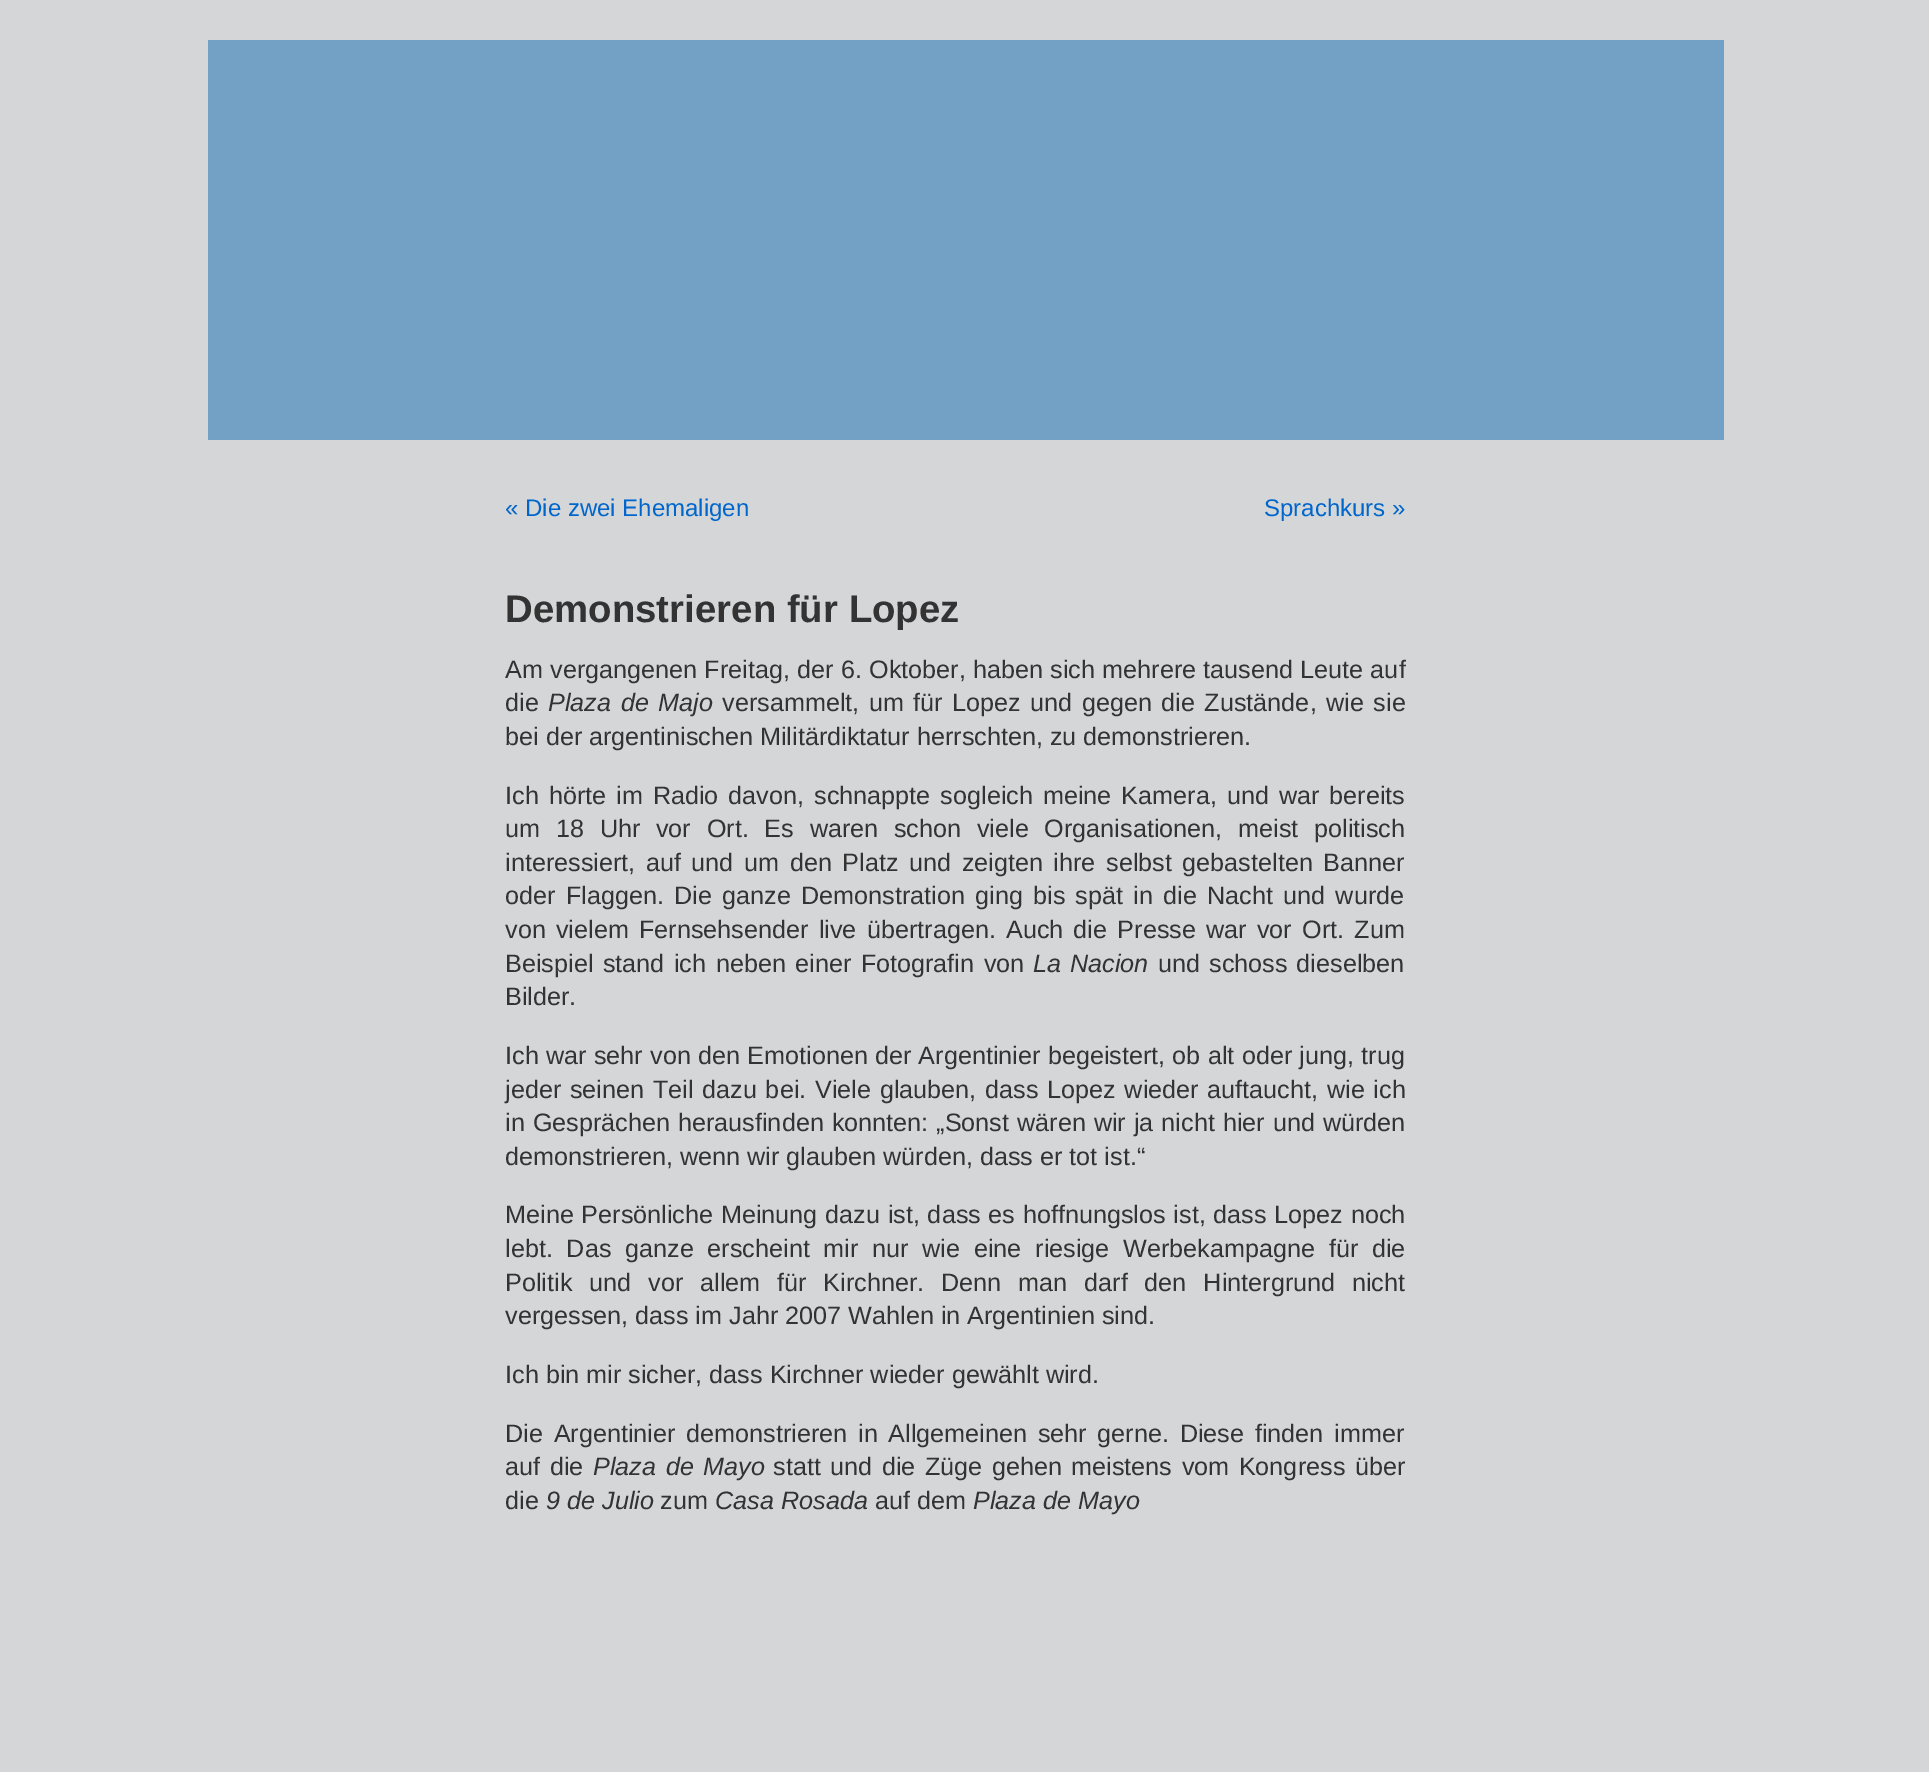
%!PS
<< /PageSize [1929 1772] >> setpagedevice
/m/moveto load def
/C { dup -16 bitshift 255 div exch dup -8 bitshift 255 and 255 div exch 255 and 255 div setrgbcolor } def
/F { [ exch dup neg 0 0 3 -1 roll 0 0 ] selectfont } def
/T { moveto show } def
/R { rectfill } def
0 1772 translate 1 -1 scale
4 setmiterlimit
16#D5D6D7 C
0 0 1929 1772 R
16#73A0C5 C
208 40 1516 400 R
/LiberationSans-Regular 24 F
16#0066CC C
(« Die zwei Ehemaligen) 505 516 T
(Sprachkurs ») 1264 516 T
/LiberationSans-Bold 38.4 F
16#333333 C
(Demonstrieren für Lopez) 505 622 T
/LiberationSans-Regular 25.2 F
505 678 m .25 0 32 (Am vergangenen Freitag, der 6. Oktober, haben sich mehrere tausend Leute auf) widthshow
(die) 505 711 T
/LiberationSans-Italic 25.2 F
548 711 m 2.5 0 32 (Plaza de Majo) widthshow
/LiberationSans-Regular 25.2 F
722 711 m 2.5 0 32 (versammelt, um für Lopez und gegen die Zustände, wie sie) widthshow
(bei der argentinischen Militärdiktatur herrschten, zu demonstrieren.) 505 745 T
505 804 m 3 0 32 (Ich hörte im Radio davon, schnappte sogleich meine Kamera, und war bereits) widthshow
505 837 m 8.75 0 32 (um 18 Uhr vor Ort. Es waren schon viele Organisationen, meist politisch) widthshow
505 871 m 3.6 0 32 (interessiert, auf und um den Platz und zeigten ihre selbst gebastelten Banner) widthshow
505 904 m 3.25 0 32 (oder Flaggen. Die ganze Demonstration ging bis spät in die Nacht und wurde) widthshow
505 938 m 3.25 0 32 (von vielem Fernsehsender live übertragen. Auch die Presse war vor Ort. Zum) widthshow
505 972 m 2.5 0 32 (Beispiel stand ich neben einer Fotografin von) widthshow
/LiberationSans-Italic 25.2 F
1033 972 m 2 0 32 (La Nacion) widthshow
/LiberationSans-Regular 25.2 F
1158 972 m 2 0 32 (und schoss dieselben) widthshow
(Bilder.) 505 1005 T
505 1064 m .25 0 32 (Ich war sehr von den Emotionen der Argentinier begeistert, ob alt oder jung, trug) widthshow
505 1098 m 1.75 0 32 (jeder seinen Teil dazu bei. Viele glauben, dass Lopez wieder auftaucht, wie ich) widthshow
505 1131 m 1 0 32 (in Gesprächen herausfinden konnten: „Sonst wären wir ja nicht hier und würden) widthshow
(demonstrieren, wenn wir glauben würden, dass er tot ist.“) 505 1165 T
505 1223 m .75 0 32 (Meine Persönliche Meinung dazu ist, dass es hoffnungslos ist, dass Lopez noch) widthshow
505 1257 m 6.75 0 32 (lebt. Das ganze erscheint mir nur wie eine riesige Werbekampagne für die) widthshow
505 1291 m 9.9 0 32 (Politik und vor allem für Kirchner. Denn man darf den Hintergrund nicht) widthshow
(vergessen, dass im Jahr 2007 Wahlen in Argentinien sind.) 505 1324 T
(Ich bin mir sicher, dass Kirchner wieder gewählt wird.) 505 1383 T
505 1442 m 3.75 0 32 (Die Argentinier demonstrieren in Allgemeinen sehr gerne. Diese finden immer) widthshow
505 1475 m 2.5 0 32 (auf die) widthshow
/LiberationSans-Italic 25.2 F
593 1475 m 2.5 0 32 (Plaza de Mayo) widthshow
/LiberationSans-Regular 25.2 F
773 1475 m 2.5 0 32 (statt und die Züge gehen meistens vom Kongress über) widthshow
(die) 505 1509 T
/LiberationSans-Italic 25.2 F
(9 de Julio) 546 1509 T
/LiberationSans-Regular 25.2 F
(zum) 660 1509 T
/LiberationSans-Italic 25.2 F
(Casa Rosada) 715 1509 T
/LiberationSans-Regular 25.2 F
(auf dem) 875 1509 T
/LiberationSans-Italic 25.2 F
(Plaza de Mayo) 973 1509 T
showpage
